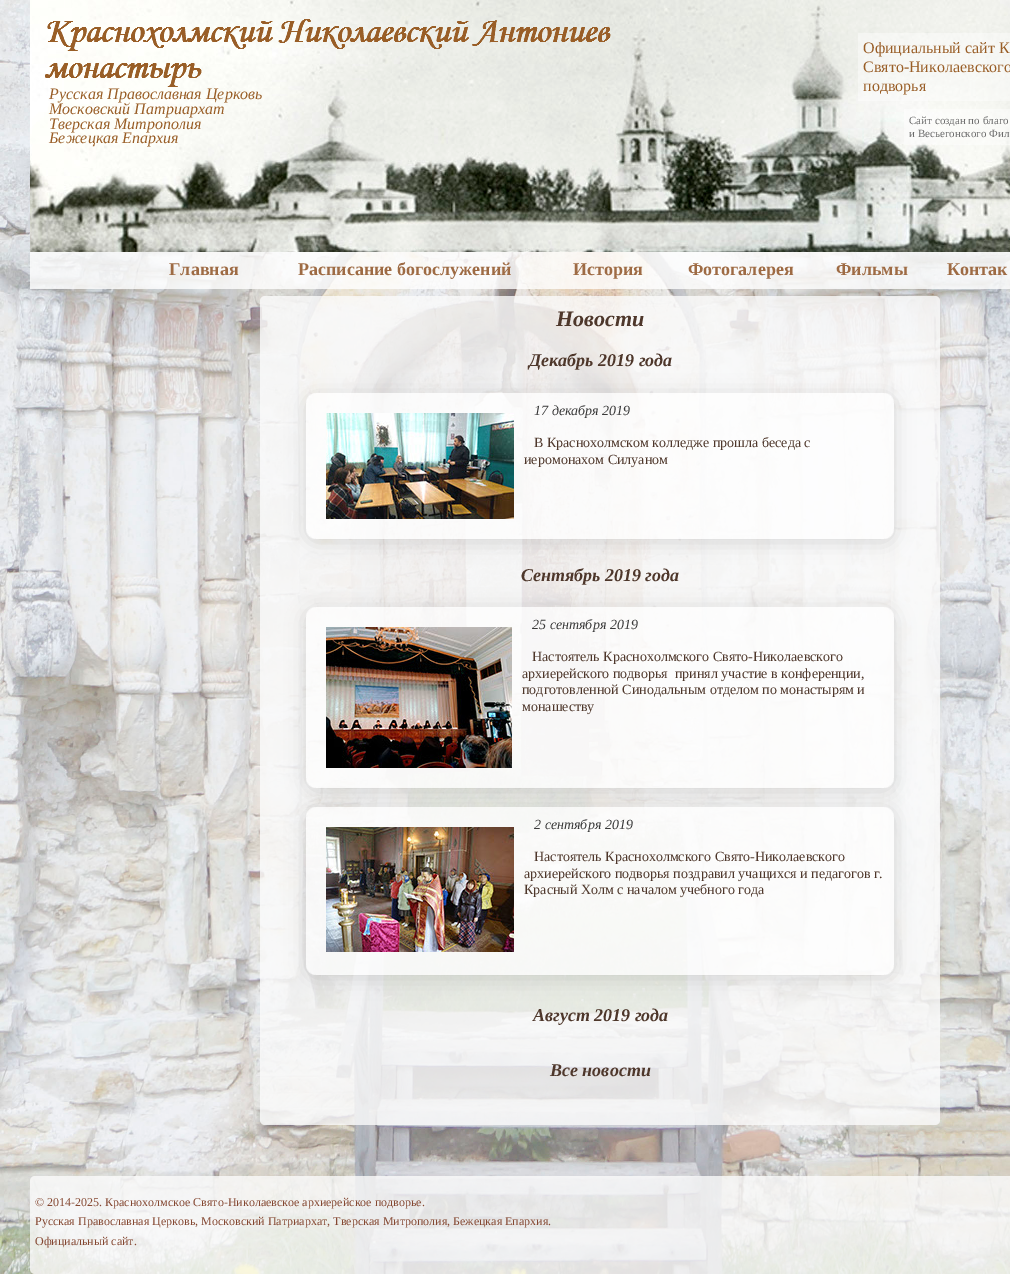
%!PS
<< /PageSize [1010 1274] /PageUsesTransparency true >> setpagedevice
/m/moveto load def
/l/rlineto load def
/c/rcurveto load def
/z/closepath load def
/f/fill load def
/q/gsave load def
/Q_/grestore load def
/C { dup -16 bitshift 255 div exch dup -8 bitshift 255 and 255 div exch 255 and 255 div setrgbcolor } def
/F { [ exch dup neg 0 0 3 -1 roll 0 0 ] selectfont } def
/T { moveto show } def
/R { rectfill } def
/A { dup .setfillconstantalpha .setstrokeconstantalpha } def
/Q { 5 dict begin { /r /h /w /y /x } { exch def } forall
  x r add y moveto x w add y 2 copy h add r arct x w add y h add x 1 index r arct
  x y h add x y r arct x y 2 copy exch w add exch r arct closepath end } def
/S { 12 dict begin { /a /b /q /h /w /y /x } { exch def } forall gsave /was 0 def
  9 -2 -9 { dup b mul 4 div /e exch def 1 sub .425 mul 2.718 exch exp 1 add a .99 .min exch div /now exch def
    1 1 now sub 1 was sub div sub A /was now def
    w h .min e 2 mul add 0 gt { x e sub y e sub w e 2 mul add h e 2 mul add
      q e add b .6 mul add w h .min 2 div e add .min 0 .max Q fill } if } for grestore end } def
/I { 5 dict begin { /h /w /y /x /name } { exch def } forall
  gsave x y translate w h scale
  w h 8 [w 0 0 h 0 0] name (r) file false 3 colorimage grestore end } def
0 .pushpdf14devicefilter
0 1274 translate 1 -1 scale
4 setmiterlimit
16#FFFFFF C
0 0 1010 1274 R
(1.rgb) 0 0 1010 1274 I
(2.rgb) 30 0 980 252 I
(3.rgb) 45 19 566 68 I
0.4 A
858 33 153 68 1 Q f
/LiberationSerif-Regular 16 F
1 A
16#995E27 C
(Официальный сайт К) 863 53 T
(Свято-Николаевского) 863 72 T
(подворья) 863 91 T
0.4 A
16#FFFFFF C
904 109 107 36 1 Q f
/LiberationSerif-Regular 11 F
1 A
16#6B6B6B C
(Сайт создан по благо) 909 124 T
(и Весьегонского Фил) 909 137 T
/LiberationSerif-Italic 16 F
16#995E27 C
(Русская Православная Церковь) 49 99 T
(Московский Патриархат) 49 114 T
(Тверская Митрополия) 49 129 T
(Бежецкая Епархия) 49 143 T
0.8 A
16#FFFFFF C
30 252 980 37 R
/LiberationSerif-Bold 18 F
1 A
16#9E6B44 C
(Главная) 169 275 T
(Расписание богослужений) 298 275 T
(История) 573 275 T
(Фотогалерея) 688 275 T
(Фильмы) 836 275 T
(Контак) 947 275 T
0.8 A
16#FBFBFB C
260 296 680 829 5 Q f
/LiberationSerif-BoldItalic 22 F
1 A
16#4E372B C
(Новости) 556 326 T
/LiberationSerif-BoldItalic 18 F
(Декабрь 2019 года) 529 366 T
q
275 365 m 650 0 l 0 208 l -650 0 l z 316 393 m 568 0 l 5.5 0 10 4.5 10 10 c 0 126 l 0 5.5 -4.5 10 -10 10 c -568 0 l -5.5 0 -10 -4.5 -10 -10 c 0 -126 l 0 -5.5 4.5 -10 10 -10 c z eoclip newpath
16#000000 C
306 396 588 146 10 10 .14 S
Q_
0.7 A
16#FFFFFF C
306 393 588 146 10 Q f
/LiberationSerif-Italic 14 F
1 A
16#383838 C
(17 декабря 2019) 534 415 T
(4.rgb) 326 413 188 106 I
/LiberationSerif-Regular 14 F
16#4E372B C
(В Краснохолмском колледже прошла беседа с) 534 447 T
(иеромонахом Силуаном) 524 464 T
q
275 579 m 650 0 l 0 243 l -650 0 l z 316 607 m 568 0 l 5.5 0 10 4.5 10 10 c 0 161 l 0 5.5 -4.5 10 -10 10 c -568 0 l -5.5 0 -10 -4.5 -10 -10 c 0 -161 l 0 -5.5 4.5 -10 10 -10 c z eoclip newpath
16#000000 C
306 610 588 181 10 10 .14 S
Q_
/LiberationSerif-BoldItalic 18 F
(Сентябрь 2019 года) 521 581 T
0.7 A
16#FFFFFF C
306 607 588 181 10 Q f
/LiberationSerif-Italic 14 F
1 A
16#383838 C
(25 сентября 2019) 532 629 T
(5.rgb) 326 627 186 141 I
/LiberationSerif-Regular 14 F
16#4E372B C
(Настоятель Краснохолмского Свято-Николаевского) 532 661 T
(архиерейского подворья  принял участие в конференции,) 522 678 T
(подготовленной Синодальным отделом по монастырям и) 522 694 T
(монашеству) 522 711 T
q
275 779 m 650 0 l 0 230 l -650 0 l z 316 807 m 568 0 l 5.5 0 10 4.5 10 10 c 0 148 l 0 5.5 -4.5 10 -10 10 c -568 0 l -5.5 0 -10 -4.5 -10 -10 c 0 -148 l 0 -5.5 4.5 -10 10 -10 c z eoclip newpath
16#000000 C
306 810 588 168 10 10 .14 S
Q_
0.7 A
16#FFFFFF C
306 807 588 168 10 Q f
/LiberationSerif-Italic 14 F
1 A
16#383838 C
(2 сентября 2019) 534 829 T
(6.rgb) 326 827 188 125 I
/LiberationSerif-Regular 14 F
16#4E372B C
(Настоятель Краснохолмского Свято-Николаевского) 534 861 T
(архиерейского подворья поздравил учащихся и педагогов г.) 524 878 T
(Красный Холм с началом учебного года) 524 894 T
/LiberationSerif-BoldItalic 18 F
(Август 2019 года) 533 1021 T
(Все новости) 550 1076 T
0.8 A
16#FBFBFB C
30 1176 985 98 5 Q f
/LiberationSerif-Regular 12 F
1 A
16#854832 C
(© 2014-2025. Краснохолмское Свято-Николаевское архиерейское подворье.) 35 1206 T
(Русская Православная Церковь, Московский Патриархат, Тверская Митрополия, Бежецкая Епархия.) 35 1225 T
(Официальный сайт.) 35 1245 T
.poppdf14devicefilter showpage
